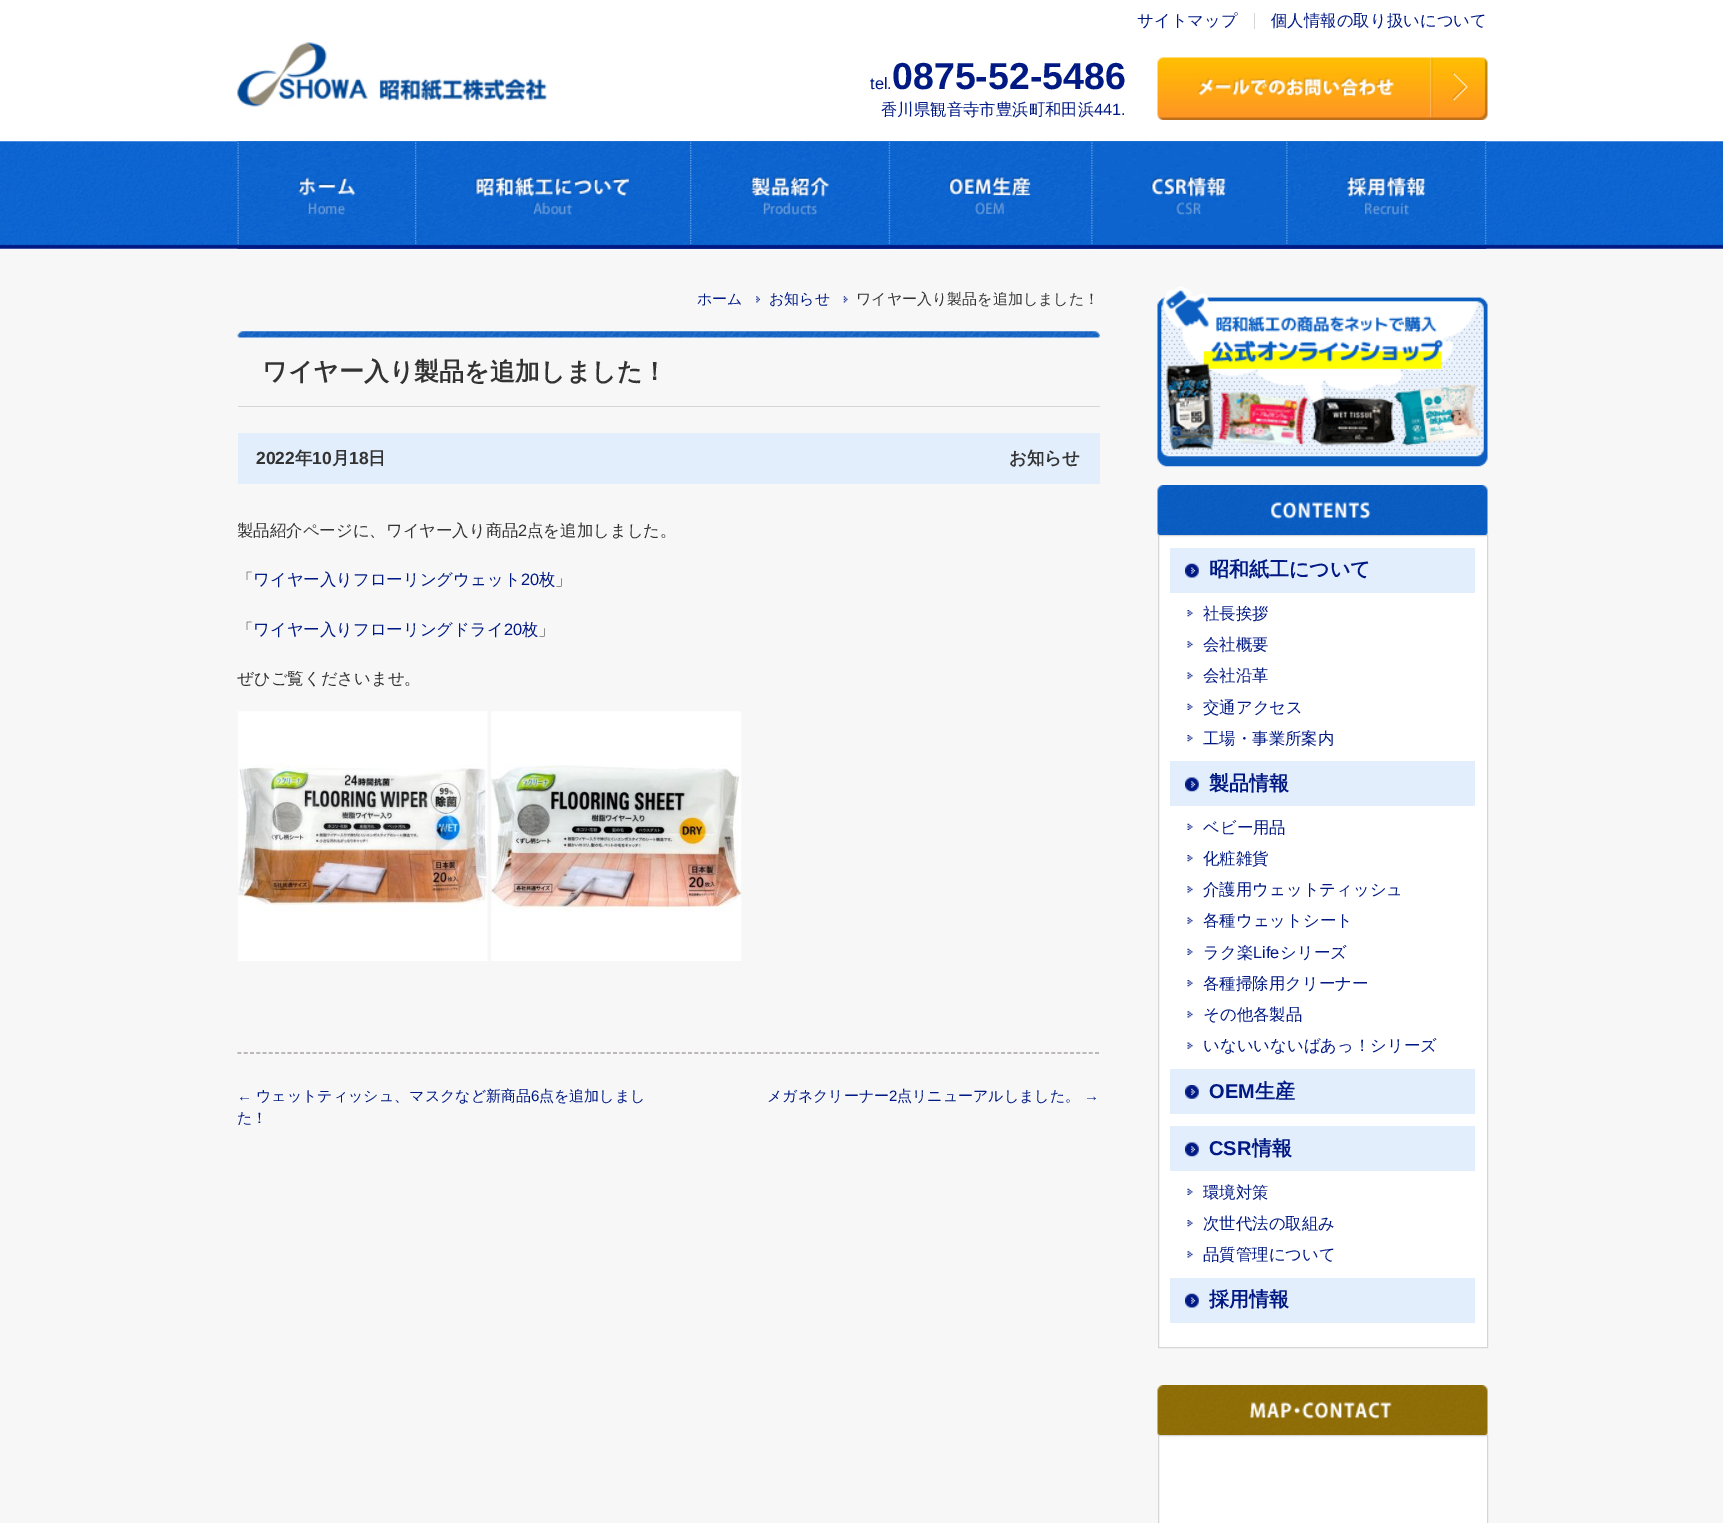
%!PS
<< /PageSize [1723 1523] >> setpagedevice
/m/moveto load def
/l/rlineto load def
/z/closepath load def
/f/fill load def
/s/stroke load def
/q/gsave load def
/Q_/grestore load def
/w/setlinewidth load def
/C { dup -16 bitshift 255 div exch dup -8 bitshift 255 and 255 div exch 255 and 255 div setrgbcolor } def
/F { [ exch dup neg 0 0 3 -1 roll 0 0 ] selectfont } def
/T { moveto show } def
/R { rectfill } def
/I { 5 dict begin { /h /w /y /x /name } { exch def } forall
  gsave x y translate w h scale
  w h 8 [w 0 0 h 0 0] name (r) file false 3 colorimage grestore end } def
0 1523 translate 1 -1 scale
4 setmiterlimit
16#FFFFFF C
0 0 1723 1523 R
/WenQuanYiZenHei-Medium 16.4 F
16#001983 C
(サイトマップ) 1137 26 T
16#D6D6D6 C
1254 13 1 16 R
16#001983 C
(個人情報の取り扱いについて) 1271 26 T
(1.rgb) 237 42 310 65 I
/LiberationSans-Regular 16.4 F
(tel.) 870 89 T
/LiberationSans-Bold 37.5 F
(0875-52-5486) 892 89 T
/WenQuanYiZenHei-Medium 16.4 F
(香川県観音寺市豊浜町和田浜) 881 115 T
/LiberationSans-Regular 16.4 F
(441.) 1094 115 T
(2.rgb) 1157 57 331 63 I
(3.rgb) 0 141 1723 108 I
(4.rgb) 237 141 178 108 I
(5.rgb) 415 141 275 108 I
(6.rgb) 690 141 199 108 I
(7.rgb) 888 141 204 108 I
(8.rgb) 1091 141 196 108 I
(9.rgb) 1286 141 201 108 I
16#F7F7F7 C
0 249 1723 1274 R
/WenQuanYiZenHei-Medium 15 F
16#001983 C
(ホーム) 697 304 T
(10.rgb) 756 296 4 7 I
(お知らせ) 769 304 T
(11.rgb) 843 296 5 7 I
16#333333 C
(ワイヤー入り製品を追加しました！) 856 304 T
(12.rgb) 237 331 863 7 I
16#D6D6D6 C
238 406 862 1 R
/WenQuanYiZenHei-Bold 25 F
16#333333 C
(ワイヤー入り製品を追加しました！) 262 380 T
16#E2EEFC C
238 433 862 51 R
/LiberationSans-Bold 17.5 F
16#333333 C
(2022) 256 464 T
/WenQuanYiZenHei-Bold 17.5 F
(年) 295 464 T
/LiberationSans-Bold 17.5 F
(10) 312 464 T
/WenQuanYiZenHei-Bold 17.5 F
(月) 332 464 T
/LiberationSans-Bold 17.5 F
(18) 349 464 T
/WenQuanYiZenHei-Bold 17.5 F
(日) 368 464 T
(お知らせ) 1009 464 T
16#A6A2A1 C
1.2 w
[3.75 2.51] 0 setdash
237.5 1053 m 862.5 0 l s
q
238 331 862 754 rectclip
/WenQuanYiZenHei-Medium 16.4 F
16#333333 C
(製品紹介ページに、ワイヤー入り商品) 237 536 T
Q_
/LiberationSans-Regular 16.4 F
16#333333 C
(2) 518 536 T
/WenQuanYiZenHei-Medium 16.4 F
(点を追加しました。) 527 536 T
(「) 237 585 T
16#001983 C
(ワイヤー入りフローリングウェット) 253 585 T
/LiberationSans-Regular 16.4 F
(20) 521 585 T
/WenQuanYiZenHei-Medium 16.4 F
(枚) 539 585 T
16#333333 C
(」) 555 585 T
(「) 237 635 T
16#001983 C
(ワイヤー入りフローリングドライ) 253 635 T
/LiberationSans-Regular 16.4 F
(20) 504 635 T
/WenQuanYiZenHei-Medium 16.4 F
(枚) 522 635 T
16#333333 C
(」) 538 635 T
(ぜひご覧くださいませ。) 237 684 T
(13.rgb) 238 711 250 250 I
(14.rgb) 491 711 251 250 I
/LiberationSans-Regular 15 F
16#001983 C
(←) 237 1101 T
/WenQuanYiZenHei-Medium 15 F
(ウェットティッシュ、マスクなど新商品) 256 1101 T
/LiberationSans-Regular 15 F
(6) 531 1101 T
/WenQuanYiZenHei-Medium 15 F
(点を追加しまし) 539 1101 T
(た！) 237 1123 T
(メガネクリーナー) 767 1101 T
/LiberationSans-Regular 15 F
(2) 889 1101 T
/WenQuanYiZenHei-Medium 15 F
(点リニューアルしました。) 897 1101 T
/LiberationSans-Regular 15 F
(→) 1084 1101 T
(15.rgb) 1157 286 331 181 I
(16.rgb) 1157 485 331 50 I
16#FFFFFF C
1158.5 535.5 m 329 0 l 0 812 l -329 0 l z q f Q_
16#D6D6D6 C
1 w
[] 0 setdash
s
16#E2EEFC C
1170 548 305 45 R
(17.rgb) 1185 563 14 15 I
/WenQuanYiZenHei-Bold 20 F
16#001983 C
(昭和紙工について) 1209 576 T
(18.rgb) 1187 610 6 7 I
/WenQuanYiZenHei-Medium 16.4 F
(社長挨拶) 1203 619 T
(19.rgb) 1187 641 6 7 I
(会社概要) 1203 650 T
(20.rgb) 1187 672 6 7 I
(会社沿革) 1203 681 T
(21.rgb) 1187 703 6 7 I
(交通アクセス) 1203 713 T
(18.rgb) 1187 735 6 7 I
(工場・事業所案内) 1203 744 T
16#E2EEFC C
1170 761 305 45 R
(22.rgb) 1185 777 14 15 I
/WenQuanYiZenHei-Bold 20 F
16#001983 C
(製品情報) 1209 790 T
(21.rgb) 1187 823 6 7 I
/WenQuanYiZenHei-Medium 16.4 F
(ベビー用品) 1203 833 T
(18.rgb) 1187 855 6 7 I
(化粧雑貨) 1203 864 T
(19.rgb) 1187 886 6 7 I
(介護用ウェットティッシュ) 1203 895 T
(20.rgb) 1187 917 6 7 I
(各種ウェットシート) 1203 926 T
(21.rgb) 1187 948 6 7 I
(ラク楽) 1203 958 T
/LiberationSans-Regular 16.4 F
(Life) 1253 958 T
/WenQuanYiZenHei-Medium 16.4 F
(シリーズ) 1280 958 T
(18.rgb) 1187 980 6 7 I
(各種掃除用クリーナー) 1203 989 T
(19.rgb) 1187 1011 6 7 I
(その他各製品) 1203 1020 T
(20.rgb) 1187 1042 6 7 I
(いないいないばあっ！シリーズ) 1203 1051 T
16#E2EEFC C
1170 1069 305 45 R
(23.rgb) 1185 1085 14 14 I
/LiberationSans-Bold 20 F
16#001983 C
(OEM) 1209 1098 T
/WenQuanYiZenHei-Bold 20 F
(生産) 1255 1098 T
16#E2EEFC C
1170 1126 305 45 R
(24.rgb) 1185 1142 14 15 I
/LiberationSans-Bold 20 F
16#001983 C
(CSR) 1209 1155 T
/WenQuanYiZenHei-Bold 20 F
(情報) 1252 1155 T
(21.rgb) 1187 1188 6 7 I
/WenQuanYiZenHei-Medium 16.4 F
(環境対策) 1203 1198 T
(18.rgb) 1187 1220 6 7 I
(次世代法の取組み) 1203 1229 T
(19.rgb) 1187 1251 6 7 I
(品質管理について) 1203 1260 T
16#E2EEFC C
1170 1278 305 45 R
(17.rgb) 1185 1293 14 15 I
/WenQuanYiZenHei-Bold 20 F
16#001983 C
(採用情報) 1209 1306 T
(25.rgb) 1157 1385 331 50 I
16#FFFFFF C
1158.5 1435.5 m 329 0 l 0 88 l -329 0 l z q f Q_
16#D6D6D6 C
s
showpage
